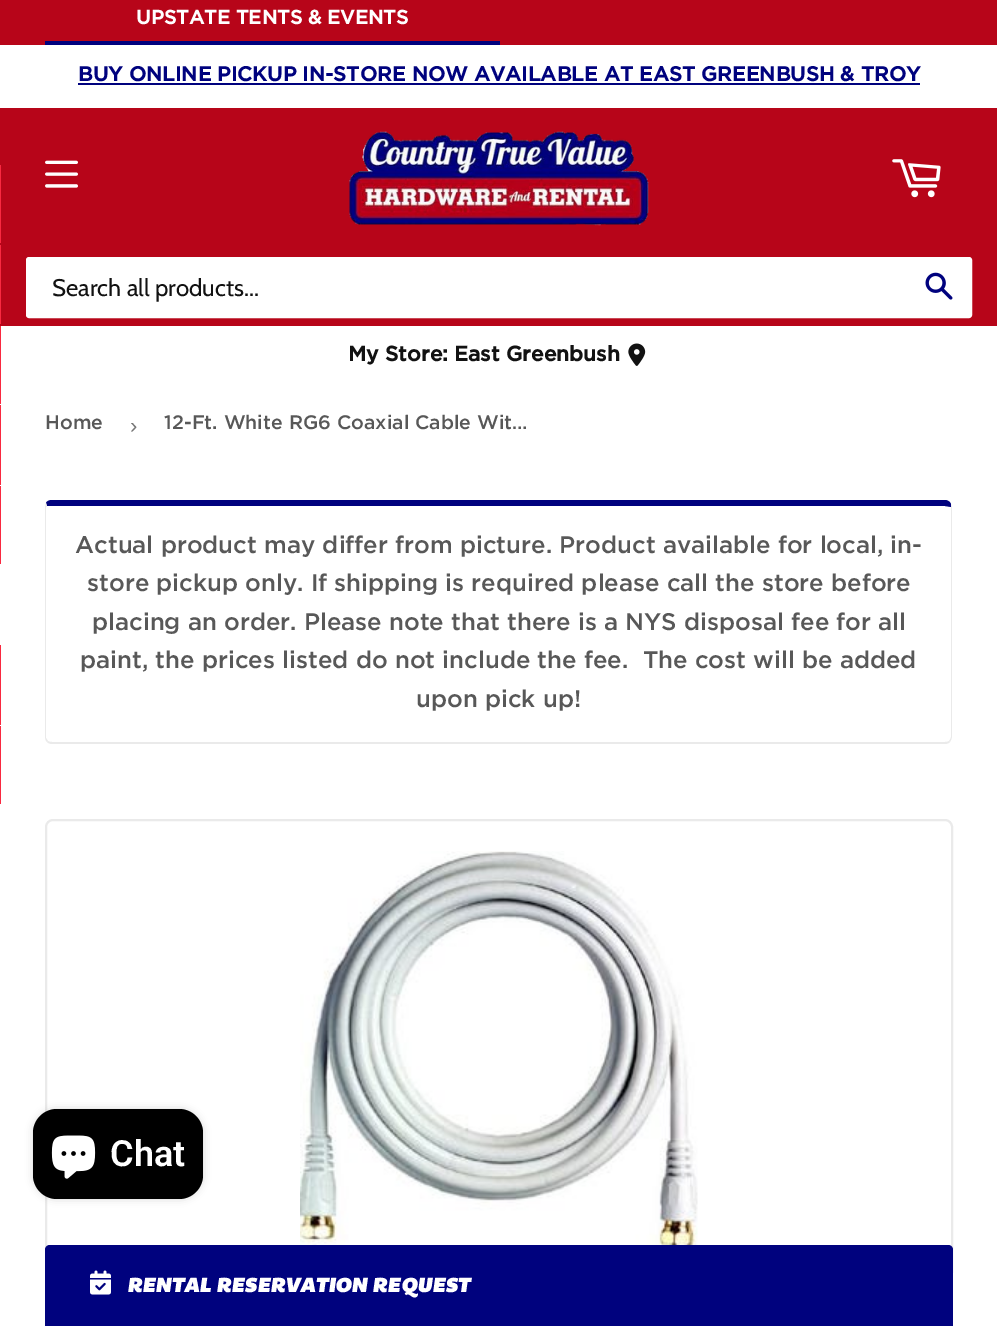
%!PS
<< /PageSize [997 1326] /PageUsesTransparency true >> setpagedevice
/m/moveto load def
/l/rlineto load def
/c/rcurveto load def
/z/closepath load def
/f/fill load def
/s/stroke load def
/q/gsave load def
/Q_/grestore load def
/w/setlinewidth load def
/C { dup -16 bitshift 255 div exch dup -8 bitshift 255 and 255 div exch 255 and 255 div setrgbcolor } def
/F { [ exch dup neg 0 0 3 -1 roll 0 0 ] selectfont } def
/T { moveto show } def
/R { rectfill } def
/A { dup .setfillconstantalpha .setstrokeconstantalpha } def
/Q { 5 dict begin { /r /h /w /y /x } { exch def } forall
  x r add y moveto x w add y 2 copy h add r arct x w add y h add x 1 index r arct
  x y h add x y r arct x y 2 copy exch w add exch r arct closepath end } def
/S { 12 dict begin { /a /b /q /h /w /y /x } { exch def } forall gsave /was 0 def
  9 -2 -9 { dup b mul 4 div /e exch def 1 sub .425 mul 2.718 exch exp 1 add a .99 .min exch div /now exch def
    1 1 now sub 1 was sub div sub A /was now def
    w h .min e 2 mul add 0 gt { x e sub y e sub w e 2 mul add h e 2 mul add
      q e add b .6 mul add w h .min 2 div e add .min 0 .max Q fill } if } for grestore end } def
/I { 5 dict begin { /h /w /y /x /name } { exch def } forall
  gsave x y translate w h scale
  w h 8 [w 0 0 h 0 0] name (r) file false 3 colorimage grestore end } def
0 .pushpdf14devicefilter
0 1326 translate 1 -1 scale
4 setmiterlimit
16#FFFFFF C
0 0 997 1326 R
16#B70519 C
0 0 997 45 R
16#00027E C
45 41 455 4 R
/Gotham-Bold 19.5 F
16#FFFFFF C
(UPSTATE TENTS & EVENTS) 136 24 T
/Gotham-Bold 20.4 F
16#00027E C
(BUY ONLINE PICKUP IN-STORE NOW AVAILABLE AT EAST GREENBUSH & TROY) 78 81 T
78 83 842 2 R
16#B70519 C
0 108 997 218 R
16#F92940 C
0 165 1 78 R
0 245 1 79 R
0 326 1 78 R
0 405 1 80 R
0 486 1 78 R
0 645 1 80 R
0 726 1 78 R
(1.rgb) 45 160 33 28 I
(2.rgb) 349 131 300 95 I
(3.rgb) 892 159 49 39 I
16#FFFFFF C
27 258 944 59 2 Q q f Q_
2 w
s
/Cabin-Regular 24 F
16#121212 C
(Search all products...) 52 296 T
(4.rgb) 925 272 28 28 I
/Gotham-Bold 21 F
(My Store:) 348 361 T
(East Greenbush) 454 361 T
(5.rgb) 628 343 18 23 I
/Gotham-Medium 19.5 F
16#585858 C
(Home) 45 429 T
/LiberationSans-Regular 22 F
16#767676 C
(›) 130 433 T
/Gotham-Medium 19.5 F
16#585858 C
(12-Ft. White RG6 Coaxial Cable Wit…) 164 429 T
16#00027E C
52 500 m -3 0 -5 1 -6 3 c 1 3 l 898 0 l 6 1 l 0 -3 l -1 -2 -3 -4 -6 -4 c z f
16#EAEAEA C
951 504 m 1 3 l 0 229 l 0 2 -1 4 -2 6 c -1 -1 l 1 -1 2 -3 2 -4 c 0 -230 l z f
52 744 m 893 0 l 2 0 4 -1 5 -2 c -1 -1 l -1 1 -3 1 -4 1 c -893 0 l -1 0 -3 0 -4 -1 c -1 1 l 1 1 3 2 5 2 c z f
45 507 m 0 229 l 0 3 1 5 2 6 c 1 -1 l -2 -3 l 0 -231 l 1 -1 l -1 -3 l z f
/Gotham-Medium 24 F
16#585858 C
(Actual product may differ from picture. Product available for local, in-) 75 553 T
(store pickup only. If shipping is required please call the store before) 87 591 T
(placing an order. Please note that there is a NYS disposal fee for all) 92 630 T
(paint, the prices listed do not include the fee.  The cost will be added) 80 668 T
(upon pick up!) 416 707 T
16#EAEAEA C
46 820 906 459 7 Q s
(6.rgb) 300 851 398 394 I
16#000000 C
33 1109 170 90 24 4 .15 S
33 1109 170 90 24 Q f
(7.rgb) 51 1135 45 44 I
/Roboto-SemiBold 36 F
16#FFFFFF C
(Chat) 110 1166 T
16#00027E C
50 1245 m 898 0 l 3 0 5 2 5 5 c 0 76 l -908 0 l 0 -76 l 0 -3 2 -5 5 -5 c z f
(8.rgb) 90 1270 21 25 I
/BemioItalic-Italic 20.9 F
16#FFFFFF C
(RENTAL RESERVATION REQUEST) 127 1292 T
.poppdf14devicefilter showpage
